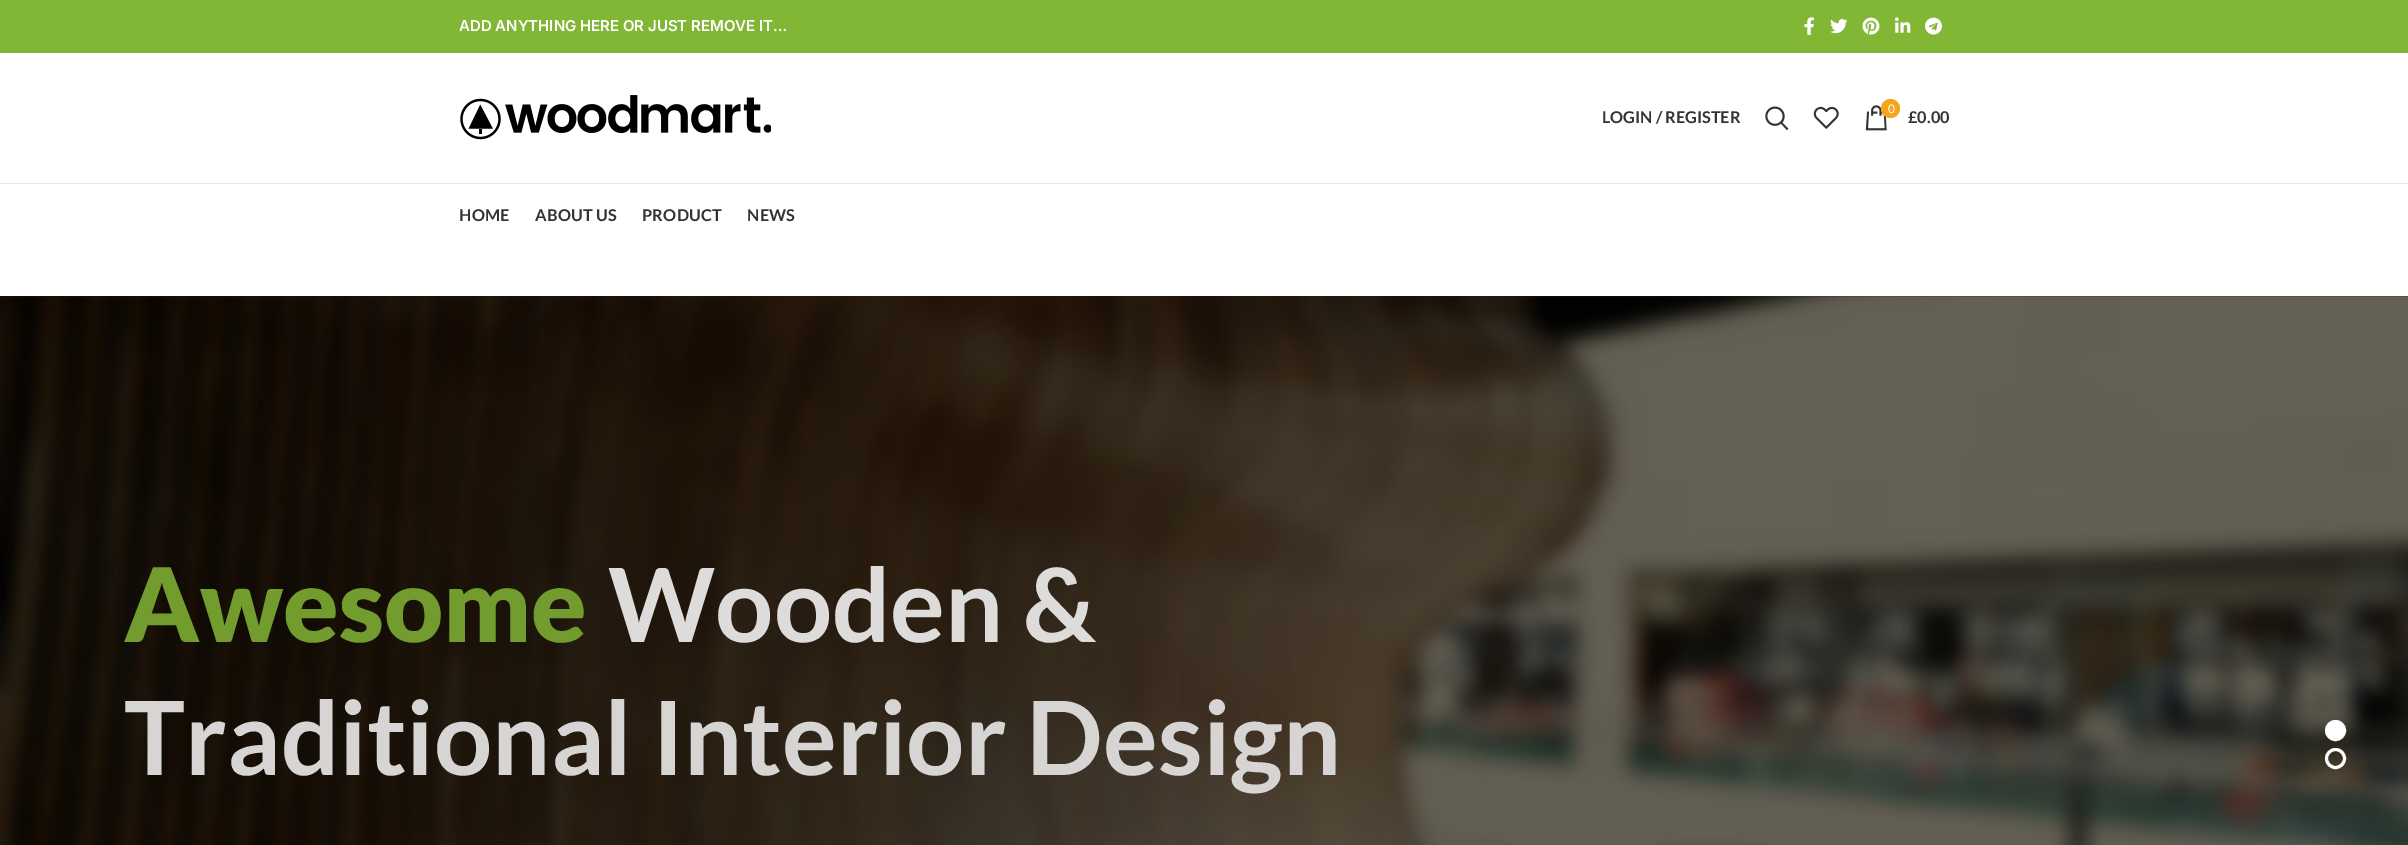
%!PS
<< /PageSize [2408 845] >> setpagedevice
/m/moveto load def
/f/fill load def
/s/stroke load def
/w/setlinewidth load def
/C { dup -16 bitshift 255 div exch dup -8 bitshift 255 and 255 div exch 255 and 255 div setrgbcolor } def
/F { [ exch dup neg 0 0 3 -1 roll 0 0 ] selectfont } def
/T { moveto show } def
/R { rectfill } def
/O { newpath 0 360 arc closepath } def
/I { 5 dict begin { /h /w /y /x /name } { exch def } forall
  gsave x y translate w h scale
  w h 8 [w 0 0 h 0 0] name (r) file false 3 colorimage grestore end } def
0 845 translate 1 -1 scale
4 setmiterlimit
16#FFFFFF C
0 0 2408 845 R
16#82B735 C
0 0 2408 53 R
/Inter-SemiBold 15 F
16#FFFFFF C
(ADD ANYTHING HERE OR JUST REMOVE IT…) 459 31 T
(1.rgb) 1804 17 10 18 I
(2.rgb) 1830 19 18 15 I
(3.rgb) 1862 17 18 18 I
(4.rgb) 1895 17 16 16 I
(5.rgb) 1925 17 17 18 I
16#E6E6E6 C
0 183 2408 1 R
(6.rgb) 460 95 311 45 I
/Lato-Bold 16.25 F
16#333333 C
(LOGIN / REGISTER) 1602 123 T
(7.rgb) 1765 106 24 25 I
(8.rgb) 1813 106 26 23 I
(9.rgb) 1865 105 22 26 I
16#F4A51C C
1890.5 108.5 9.5 O f
/Lato-Regular 12 F
16#FFFFFF C
(0) 1888 113 T
/Lato-Bold 16.25 F
16#333333 C
(£0.00) 1908 123 T
459 221 m .25 0 (HOME) ashow
535 221 m .25 0 (ABOUT US) ashow
642 221 m .25 0 (PRODUCT) ashow
747 221 m .25 0 (NEWS) ashow
(10.rgb) 0 296 2408 549 I
/Lato-Black 102.5 F
16#729D2E C
(Awesome) 124 642 T
/Lato-Bold 102.5 F
16#DEDCDA C
(Wooden &) 608 642 T
16#D7D5D3 C
(Traditional Interior Design) 124 775 T
16#FFFFFF C
3 w
2335.5 730.5 9 O s
2335.5 730.5 9.5 O f
2335.5 758.5 9 O s
showpage
